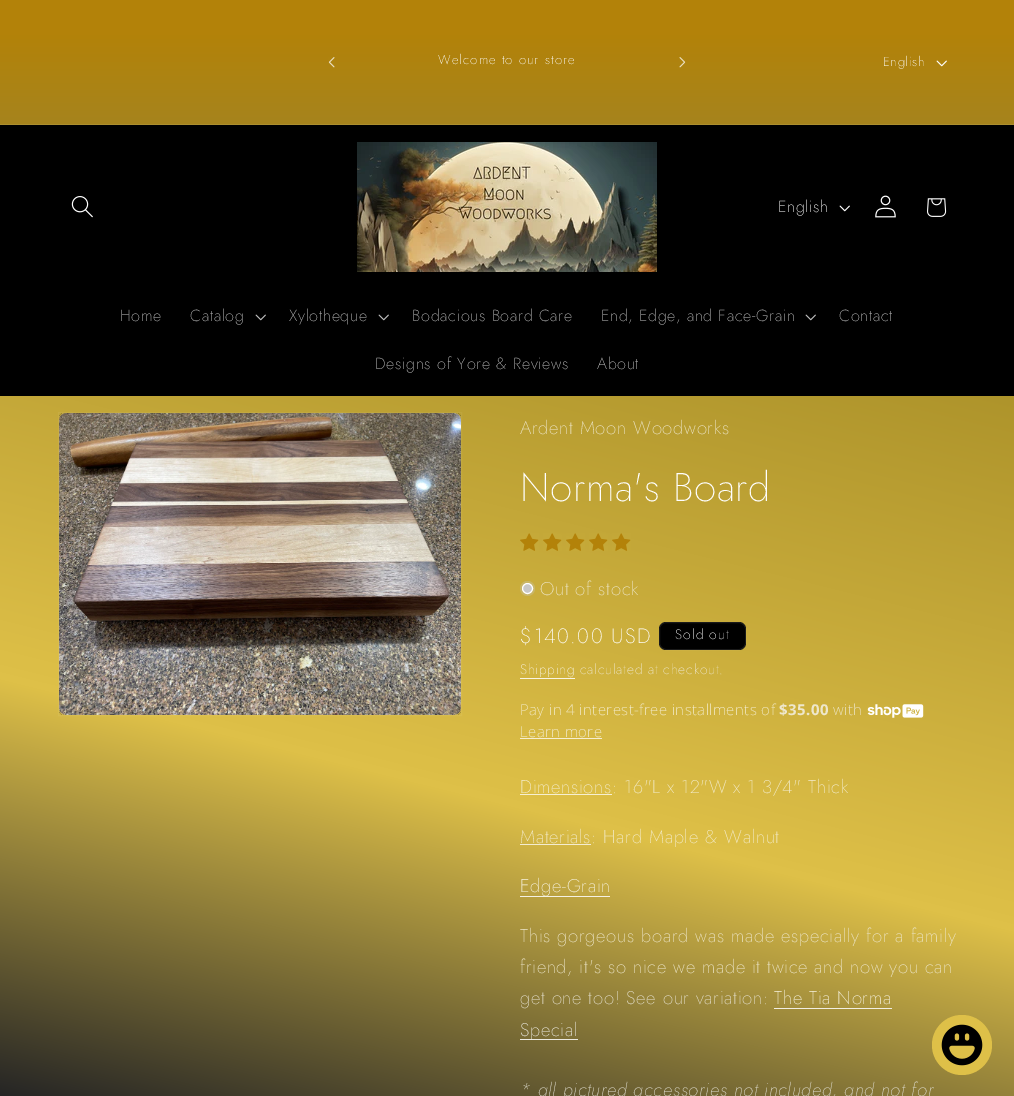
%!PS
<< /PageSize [1014 1096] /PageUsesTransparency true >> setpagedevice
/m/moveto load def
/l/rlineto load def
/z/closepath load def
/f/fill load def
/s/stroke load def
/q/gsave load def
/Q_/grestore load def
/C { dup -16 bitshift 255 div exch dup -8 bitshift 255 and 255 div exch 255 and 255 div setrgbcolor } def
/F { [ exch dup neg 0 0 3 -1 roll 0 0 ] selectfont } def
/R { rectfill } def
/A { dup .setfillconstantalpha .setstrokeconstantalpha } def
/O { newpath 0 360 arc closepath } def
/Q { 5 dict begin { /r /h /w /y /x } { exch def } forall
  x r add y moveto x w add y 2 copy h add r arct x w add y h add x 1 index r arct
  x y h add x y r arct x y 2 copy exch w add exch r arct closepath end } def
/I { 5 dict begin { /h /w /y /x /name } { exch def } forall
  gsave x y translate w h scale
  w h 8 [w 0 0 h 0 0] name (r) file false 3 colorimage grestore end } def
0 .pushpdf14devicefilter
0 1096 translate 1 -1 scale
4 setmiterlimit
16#FFFFFF C
0 0 1014 1096 R
q 0 396 m 1014 0 l 0 700 l -1014 0 l z clip newpath
<< /ShadingType 2 /ColorSpace /DeviceRGB /Coords [665 -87 349 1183] /Extend [true true] /Function << /FunctionType 3 /Domain [0 1] /Functions [<< /FunctionType 2 /Domain [0 1] /C0 [0 0 0] /C1 [.671 .569 .161] /N 1 >> << /FunctionType 2 /Domain [0 1] /C0 [.671 .569 .161] /C1 [.871 .753 .282] /N 1 >> << /FunctionType 2 /Domain [0 1] /C0 [.871 .753 .282] /C1 [.145 .145 .145] /N 1 >>] /Bounds [.27 .69] /Encode [0 1 0 1 0 1] >> >> shfill Q_
q 520 1039 m 58 0 l 0 1 l -58 0 l z clip newpath
<< /ShadingType 2 /ColorSpace /DeviceRGB /Coords [665 -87 349 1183] /Extend [true true] /Function << /FunctionType 3 /Domain [0 1] /Functions [<< /FunctionType 2 /Domain [0 1] /C0 [.851 .851 .851] /C1 [.949 .937 .875] /N 1 >> << /FunctionType 2 /Domain [0 1] /C0 [.949 .937 .875] /C1 [.98 .965 .894] /N 1 >> << /FunctionType 2 /Domain [0 1] /C0 [.98 .965 .894] /C1 [.871 .871 .871] /N 1 >>] /Bounds [.27 .69] /Encode [0 1 0 1 0 1] >> >> shfill Q_
q 774 1008 m 118 0 l 0 1 l -118 0 l z clip newpath
<< /ShadingType 2 /ColorSpace /DeviceRGB /Coords [665 -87 349 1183] /Extend [true true] /Function << /FunctionType 3 /Domain [0 1] /Functions [<< /FunctionType 2 /Domain [0 1] /C0 [.851 .851 .851] /C1 [.949 .937 .875] /N 1 >> << /FunctionType 2 /Domain [0 1] /C0 [.949 .937 .875] /C1 [.98 .965 .894] /N 1 >> << /FunctionType 2 /Domain [0 1] /C0 [.98 .965 .894] /C1 [.871 .871 .871] /N 1 >>] /Bounds [.27 .69] /Encode [0 1 0 1 0 1] >> >> shfill Q_
q 520 896 m 90 0 l 0 1 l -90 0 l z clip newpath
<< /ShadingType 2 /ColorSpace /DeviceRGB /Coords [665 -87 349 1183] /Extend [true true] /Function << /FunctionType 3 /Domain [0 1] /Functions [<< /FunctionType 2 /Domain [0 1] /C0 [.851 .851 .851] /C1 [.949 .937 .875] /N 1 >> << /FunctionType 2 /Domain [0 1] /C0 [.949 .937 .875] /C1 [.98 .965 .894] /N 1 >> << /FunctionType 2 /Domain [0 1] /C0 [.98 .965 .894] /C1 [.871 .871 .871] /N 1 >>] /Bounds [.27 .69] /Encode [0 1 0 1 0 1] >> >> shfill Q_
q 520 844 m 71 0 l 0 1 l -71 0 l z clip newpath
<< /ShadingType 2 /ColorSpace /DeviceRGB /Coords [665 -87 349 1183] /Extend [true true] /Function << /FunctionType 3 /Domain [0 1] /Functions [<< /FunctionType 2 /Domain [0 1] /C0 [.749 .749 .749] /C1 [.918 .894 .792] /N 1 >> << /FunctionType 2 /Domain [0 1] /C0 [.918 .894 .792] /C1 [.969 .937 .82] /N 1 >> << /FunctionType 2 /Domain [0 1] /C0 [.969 .937 .82] /C1 [.788 .788 .788] /N 1 >>] /Bounds [.27 .69] /Encode [0 1 0 1 0 1] >> >> shfill Q_
q 0 0 m 1014 0 l 0 124 l -1014 0 l z clip newpath
<< /ShadingType 2 /ColorSpace /DeviceRGB /Coords [507 1096 507 0] /Extend [true true] /Function << /FunctionType 3 /Domain [0 1] /Functions [<< /FunctionType 2 /Domain [0 1] /C0 [.086 .6 .937] /C1 [.702 .51 .035] /N 1 >> << /FunctionType 2 /Domain [0 1] /C0 [.702 .51 .035] /C1 [.702 .51 .035] /N 1 >>] /Bounds [.97] /Encode [0 1 0 1] >> >> shfill Q_
16#AC8E2F C
0 124 1014 1 R
(1.rgb) 328 57 7 11 I
/Jost-ExtraLight 13 F
16#FFFFFF C
438 64 m 1.1 0 (Welcome to our store) ashow
(2.rgb) 679 57 7 11 I
883 66 m .7 0 (English) ashow
(3.rgb) 936 60 11 7 I
16#000000 C
0 125 1014 271 R
(4.rgb) 71 196 22 22 I
(5.rgb) 357 142 300 130 I
/Jost-ExtraLight 16.1 F
16#FFFFFF C
778 212 m .7 0 (English) ashow
(6.rgb) 839 205 11 7 I
(7.rgb) 875 195 21 23 I
(8.rgb) 927 198 20 19 I
16#BFBFBF C
120 321 m .7 0 (Home) ashow
190 321 m .7 0 (Catalog) ashow
(9.rgb) 255 314 11 7 I
289 321 m .7 0 (Xylotheque) ashow
(9.rgb) 378 314 11 7 I
412 321 m .7 0 (Bodacious Board Care) ashow
601 321 m .7 0 (End, Edge, and Face-Grain) ashow
(9.rgb) 805 314 11 7 I
839 321 m .7 0 (Contact) ashow
375 369 m .7 0 (Designs of Yore & Reviews) ashow
597 369 m .7 0 (About) ashow
0.05 A
16#FFFFFF C
58.5 412.5 403 303 rectstroke
1 A
(10.rgb) 59 413 402 302 I
/Jost-ExtraLight 18.4 F
16#EEE7CC C
520 434 m .7 0 (Ardent Moon Woodworks) ashow
/Jost-ExtraLight 40 F
16#FFFFFF C
520 501 m .6 0 (Norma's Board) ashow
(11.rgb) 520 533 19 18 I
(12.rgb) 543 533 19 18 I
(13.rgb) 566 533 19 18 I
(14.rgb) 589 533 19 18 I
(15.rgb) 612 533 19 18 I
16#C9B666 C
527.5 588.5 7.5 O f
16#C8C8C8 C
527.5 588.5 5 O q f Q_
16#FFFFFF C
s
/Jost-ExtraLight 18.4 F
16#EEE7CC C
540 595 m .7 0 (Out of stock) ashow
/Jost-ExtraLight 20.75 F
16#FFFFFF C
520 643 m 1.5 0 ($140.00 USD) ashow
16#000000 C
659 622 87 28 7 Q f
0.1 A
16#FFFFFF C
659.5 622.5 86 27 6.5 Q s
/Jost-ExtraLight 13.75 F
1 A
675 639 m 1.1 0 (Sold out) ashow
16#F8F4E2 C
520 674 m .8 0 (Shipping) ashow
520 678 55 1 R
16#EEE7CC C
580 674 m .8 0 (calculated at checkout.) ashow
/NotoSans-ExtraLight 15 F
16#F4EDCF C
520 715 m .45 0 (Pay in 4 interest-free installments of) ashow
/NotoSans-Bold 15 F
16#EEE7CC C
779 715 m .45 0 ($35.00) ashow
/NotoSans-ExtraLight 15 F
833 715 m .45 0 (with) ashow
(16.rgb) 867 704 57 14 I
16#F4EDCF C
520 737 m .45 0 (Learn more) ashow
16#F5EED0 C
520 738 82 1 R
/Jost-ExtraLight 18.4 F
16#F4EDCF C
520 793 m .7 0 (Dimensions) ashow
16#F6EFD1 C
520 794 92 1 R
16#F4EDCF C
612 793 m .7 0 (: 16"L x 12"W x 1 3/4" Thick) ashow
520 843 m .7 0 (Materials) ashow
591 843 m .7 0 (: Hard Maple & Walnut) ashow
16#F8F4E2 C
520 892 m .7 0 (Edge-Grain) ashow
16#EEE7CC C
520 942 m .7 0 (This gorgeous board was made especially for a family) ashow
520 973 m .7 0 (friend, it's so nice we made it twice and now you can) ashow
16#E5E0CE C
520 1004 m .7 0 (get one too! See our variation:) ashow
16#F8F4E2 C
774 1004 m .7 0 (The Tia Norma) ashow
16#ECEAE1 C
520 1036 m .7 0 (Special) ashow
/Jost-ExtraLightItalic 18.4 F
16#DDDACC C
520 1096 m .7 0 (* all pictured accessories not included, and not for) ashow
16#DEC048 C
962 1045 30 O f
(17.rgb) 941 1024 42 42 I
.poppdf14devicefilter showpage
